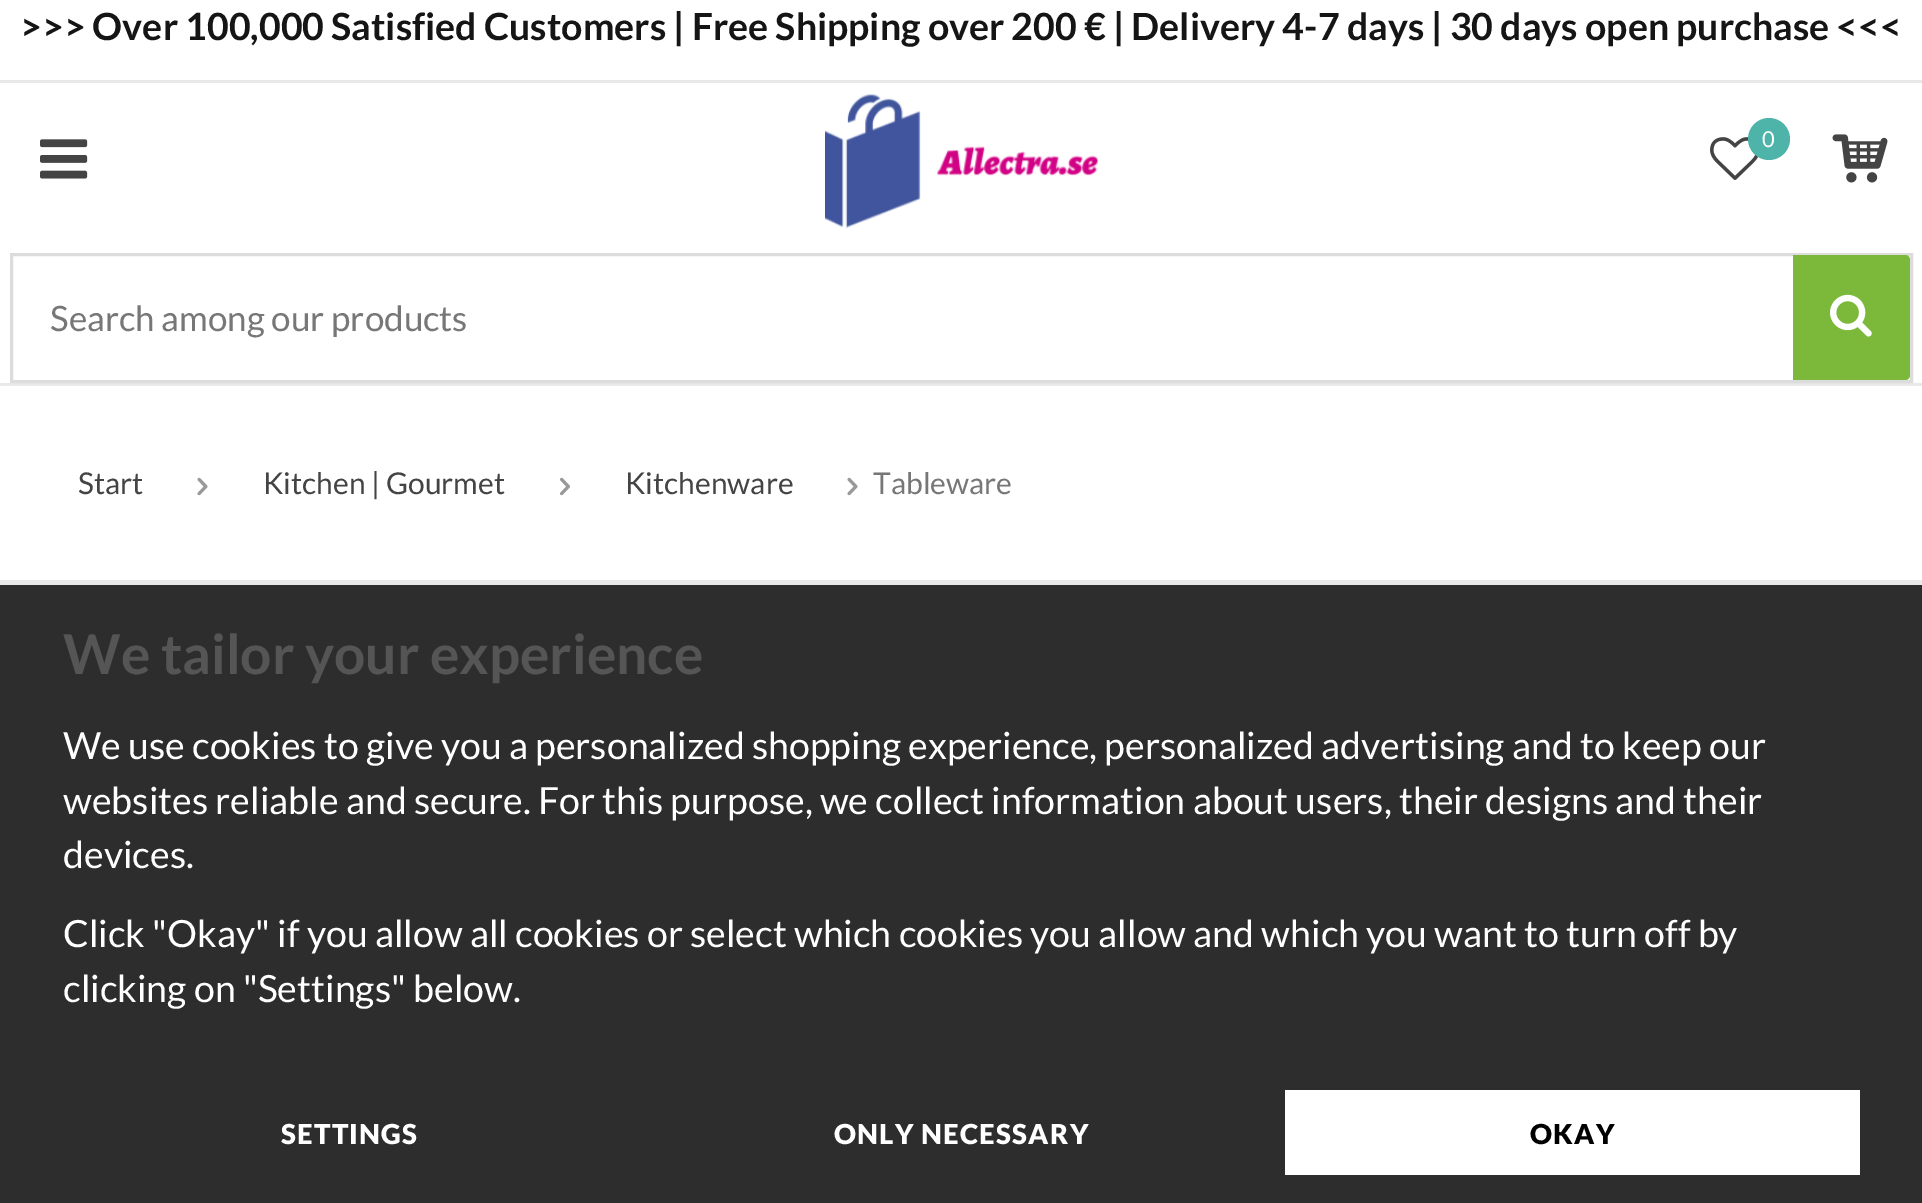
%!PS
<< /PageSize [1922 1203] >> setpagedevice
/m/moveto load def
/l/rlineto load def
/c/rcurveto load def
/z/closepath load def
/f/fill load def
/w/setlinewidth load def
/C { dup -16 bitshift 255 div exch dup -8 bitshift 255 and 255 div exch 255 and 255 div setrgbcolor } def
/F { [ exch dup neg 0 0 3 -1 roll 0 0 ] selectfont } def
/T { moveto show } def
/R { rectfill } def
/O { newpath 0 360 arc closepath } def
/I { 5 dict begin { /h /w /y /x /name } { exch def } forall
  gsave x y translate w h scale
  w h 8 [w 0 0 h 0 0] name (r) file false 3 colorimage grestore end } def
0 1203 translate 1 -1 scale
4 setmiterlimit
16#FFFFFF C
0 0 1922 1203 R
16#E9E9E9 C
0 383 1922 3 R
/Lato-Bold 37.5 F
16#151515 C
(>>> Over 100,000 Satisfied Customers | Free Shipping over 200 € | Delivery 4-7 days | 30 days open purchase <<<) 20 40 T
16#E9E9E9 C
0 80 1922 3 R
(1.rgb) 40 139 48 40 I
(2.rgb) 825 94 273 135 I
(3.rgb) 1710 137 49 43 I
16#4EB4AA C
1769 139 21 O f
/Lato-Regular 22 F
16#FFFFFF C
(0) 1762 147 T
(4.rgb) 1832 134 56 49 I
16#DCDCDC C
3 w
11.5 254.5 1900 127 rectstroke
/Lato-Regular 35 F
16#777777 C
(Search among our products) 50 331 T
16#7CB93B C
1793 255 m 112 0 l 3 0 5 2 5 5 c 0 115 l 0 3 -2 5 -5 5 c -112 0 l z f
(5.rgb) 1830 294 42 43 I
/Lato-Regular 30 F
16#444444 C
(Start) 78 494 T
(6.rgb) 197 477 11 19 I
(Kitchen | Gourmet) 263 494 T
(7.rgb) 559 477 12 19 I
(Kitchenware) 625 494 T
(6.rgb) 847 477 11 19 I
16#777777 C
(Tableware) 873 494 T
16#2D2D2D C
0 585 1922 618 R
16#E9E9E9 C
0 580 1922 5 R
/Lato-Bold 55 F
16#555555 C
(We tailor your experience) 63 674 T
/Lato-Regular 37.5 F
16#FFFFFF C
(We use cookies to give you a personalized shopping experience, personalized advertising and to keep our) 63 759 T
(websites reliable and secure. For this purpose, we collect information about users, their designs and their) 63 814 T
(devices.) 63 868 T
(Click "Okay" if you allow all cookies or select which cookies you allow and which you want to turn off by) 63 947 T
(clicking on "Settings" below.) 63 1002 T
/Lato-Black 27.5 F
281 1144 m 1.25 0 (SETTINGS) ashow
834 1144 m 1.25 0 (ONLY NECESSARY) ashow
1285 1090 575 85 R
16#000000 C
1530 1144 m 1.25 0 (OKAY) ashow
showpage
